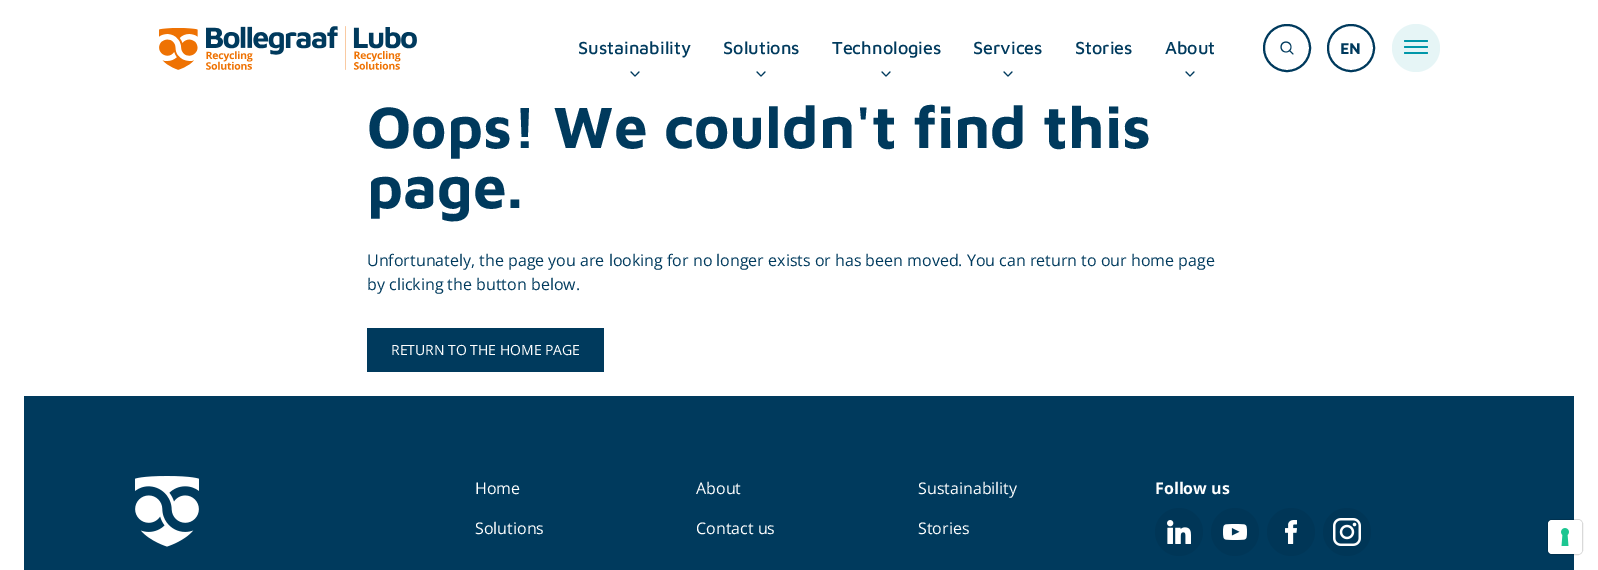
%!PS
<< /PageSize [1598 570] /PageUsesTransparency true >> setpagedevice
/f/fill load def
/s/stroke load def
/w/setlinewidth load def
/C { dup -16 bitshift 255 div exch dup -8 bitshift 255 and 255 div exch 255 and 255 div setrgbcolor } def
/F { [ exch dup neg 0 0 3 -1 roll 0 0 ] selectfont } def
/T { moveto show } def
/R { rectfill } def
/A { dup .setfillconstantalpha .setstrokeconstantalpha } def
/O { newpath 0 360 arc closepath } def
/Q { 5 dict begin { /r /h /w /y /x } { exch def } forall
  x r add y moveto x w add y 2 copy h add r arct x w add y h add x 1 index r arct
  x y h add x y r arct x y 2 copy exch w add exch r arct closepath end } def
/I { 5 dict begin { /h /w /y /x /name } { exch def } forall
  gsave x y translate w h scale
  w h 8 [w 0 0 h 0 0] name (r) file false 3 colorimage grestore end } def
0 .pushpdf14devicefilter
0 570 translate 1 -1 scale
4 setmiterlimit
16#FFFFFF C
0 0 1598 570 R
(1.rgb) 159 26 258 44 I
/MavenPro-Medium 18 F
16#003A5D C
(Sustainability) 578 54 T
(2.rgb) 630 71 10 6 I
(Solutions) 723 54 T
(2.rgb) 756 71 10 6 I
(Technologies) 832 54 T
(2.rgb) 881 71 10 6 I
(Services) 973 54 T
(2.rgb) 1003 71 10 6 I
(Stories) 1075 54 T
(About) 1165 54 T
(2.rgb) 1185 71 10 6 I
2 w
1287 48 23 O s
(3.rgb) 1280 41 14 14 I
1351 48 23 O s
/MavenPro-Bold 16 F
(EN) 1340 54 T
16#E6F5F6 C
1416 48 24 O f
16#0097A9 C
1404 40 24 2 1 Q f
1404 52 24 2 1 Q f
1404 46 24 2 1 Q f
/MavenPro-Bold 60 F
16#003A5D C
(Oops! We couldn't find this) 367 148 T
(page.) 367 208 T
/OpenSans-Regular 16 F
(Unfortunately, the page you are looking for no longer exists or has been moved. You can return to our home page) 367 266 T
(by clicking the button below.) 367 290 T
367 328 237 44 R
/OpenSans-Regular 14 F
16#FFFFFF C
(RETURN TO THE HOME PAGE) 391 355 T
16#003A5D C
24 396 1550 174 R
(4.rgb) 135 476 64 71 I
/OpenSans-Regular 16 F
16#FFFFFF C
(Home) 475 494 T
(About) 696 494 T
(Sustainability) 918 494 T
(Solutions) 475 534 T
(Contact us) 696 534 T
(Stories) 918 534 T
/OpenSans-Bold 16 F
(Follow us) 1155 494 T
16#003657 C
1179 532 24 O f
(5.rgb) 1167 520 24 24 I
1235 532 24 O f
(6.rgb) 1223 524 24 16 I
1291 532 24 O f
(7.rgb) 1285 520 12 24 I
1347 532 24 O f
(8.rgb) 1333 518 28 28 I
0.15 A
16#000000 C
1 w
1547.5 519.5 35 35 4.5 Q s
1 A
16#FFFFFF C
1548 520 34 34 4 Q f
(9.rgb) 1561 528 8 18 I
.poppdf14devicefilter showpage
